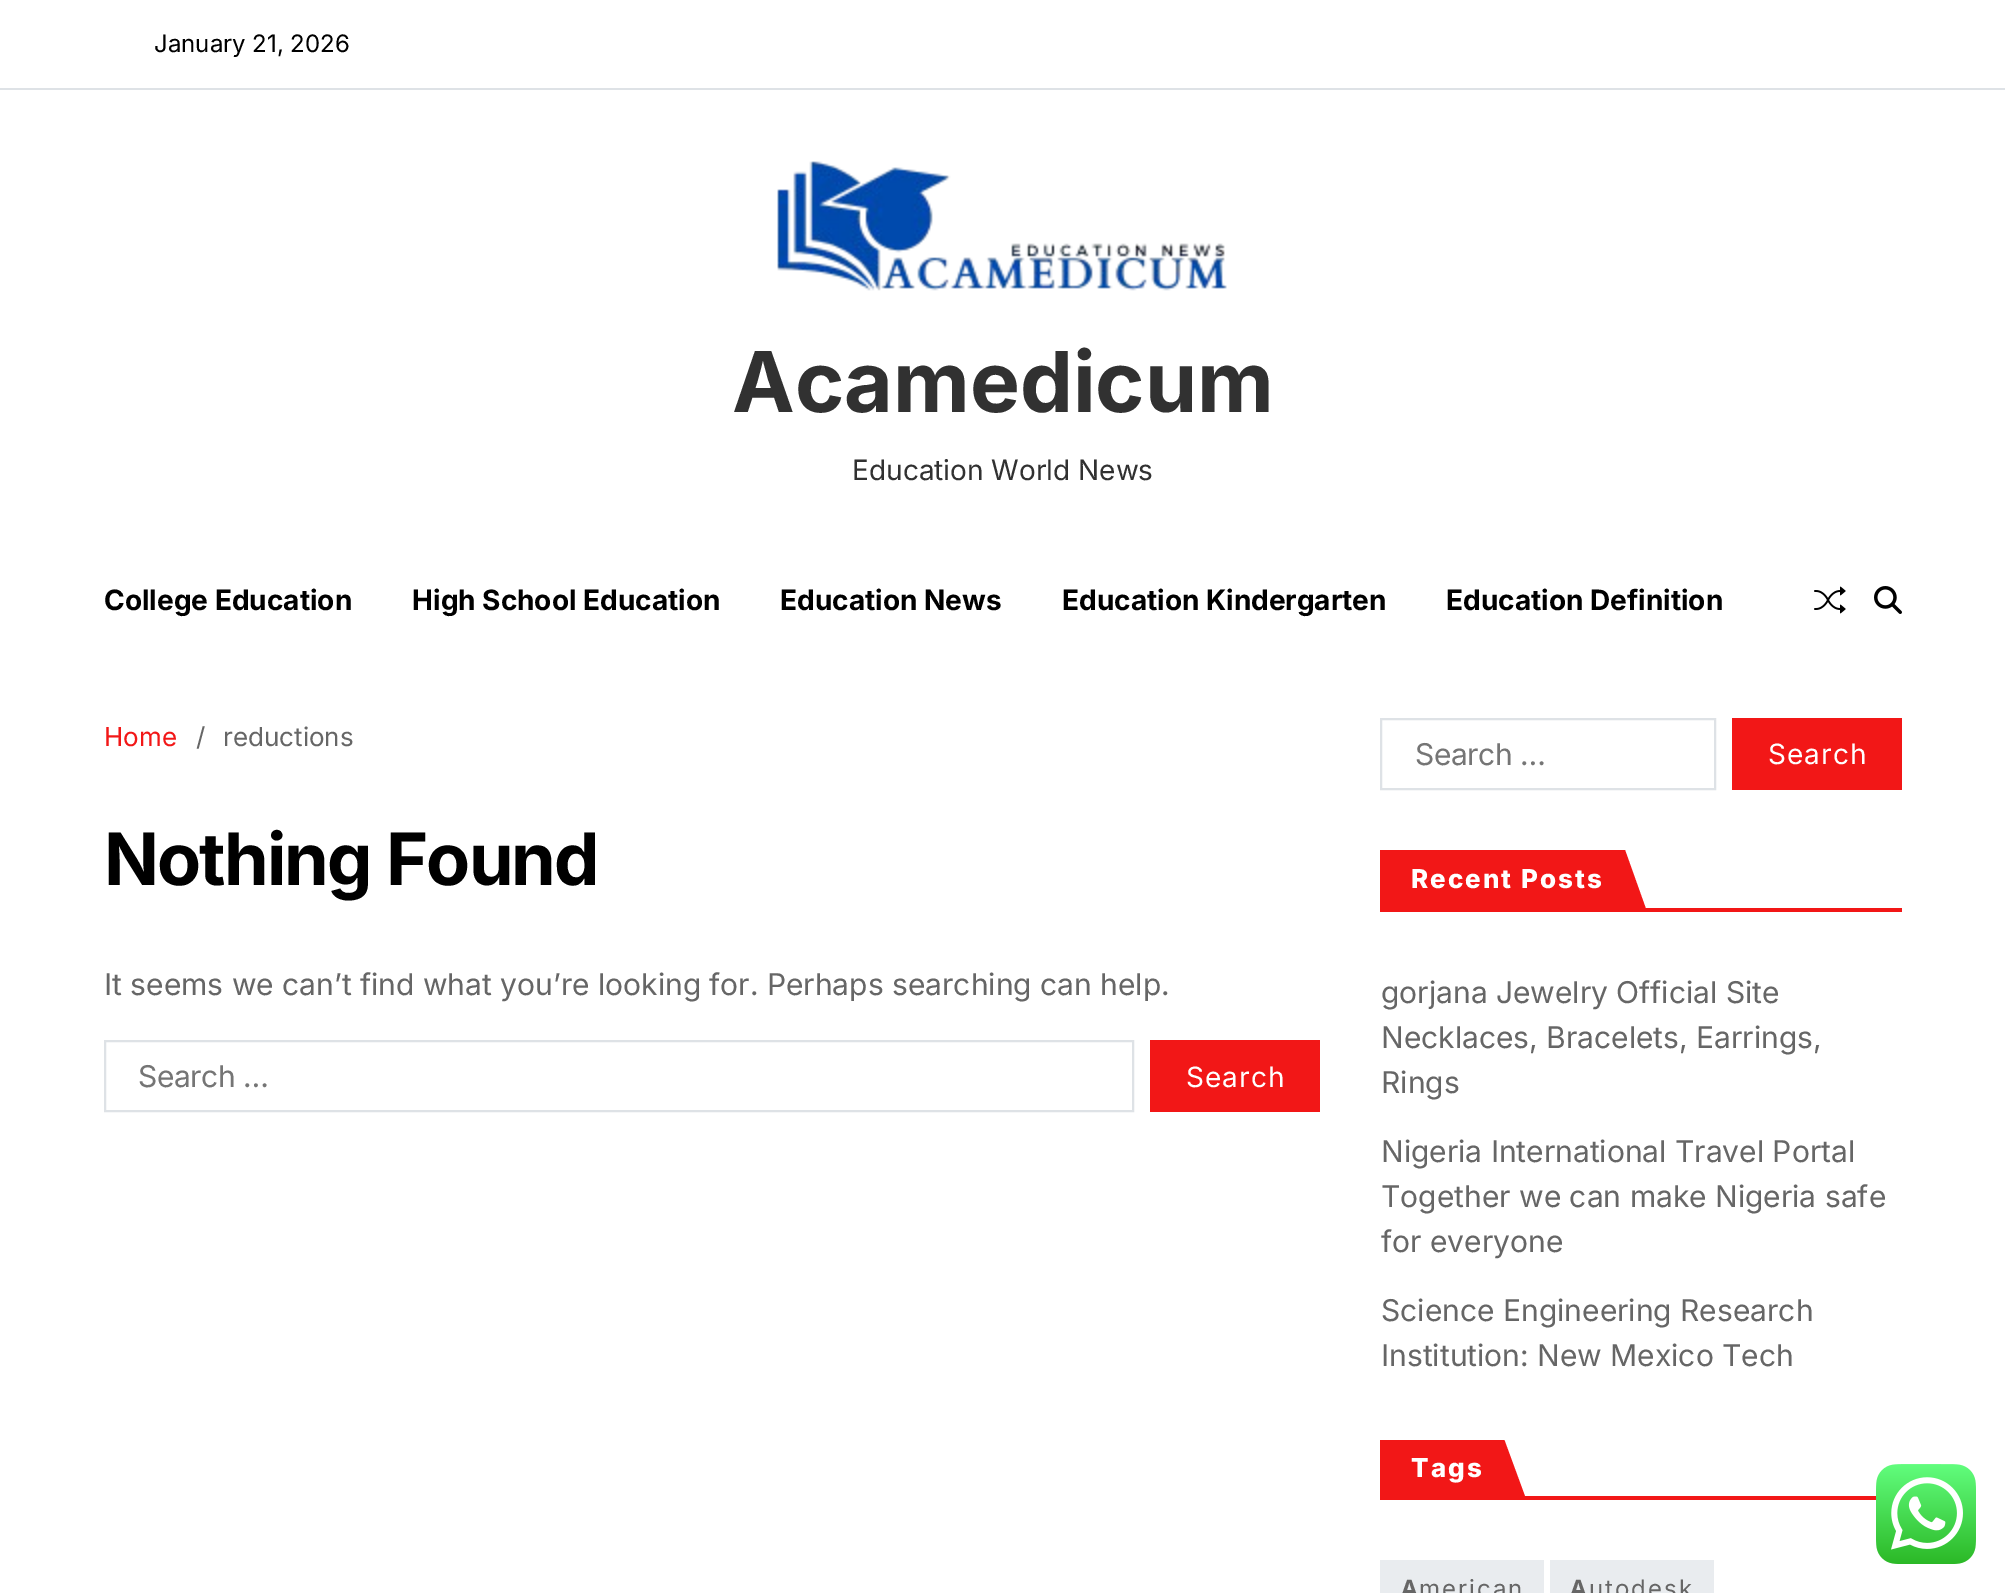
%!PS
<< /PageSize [2005 1593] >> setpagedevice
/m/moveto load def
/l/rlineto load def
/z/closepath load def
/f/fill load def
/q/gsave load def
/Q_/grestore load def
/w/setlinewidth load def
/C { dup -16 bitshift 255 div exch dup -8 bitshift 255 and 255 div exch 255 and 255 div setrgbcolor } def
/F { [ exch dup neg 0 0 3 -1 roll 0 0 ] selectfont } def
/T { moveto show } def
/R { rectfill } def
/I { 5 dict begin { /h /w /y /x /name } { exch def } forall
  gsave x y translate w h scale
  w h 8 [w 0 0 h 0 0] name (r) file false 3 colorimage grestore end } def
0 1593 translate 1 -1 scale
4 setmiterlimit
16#FFFFFF C
0 0 2005 1593 R
16#DEE2E6 C
0 88 2005 2 R
/Inter-Regular 24 F
16#000000 C
(January 21, 2026) 154 52 T
(1.rgb) 777 161 450 130 I
/Inter-Bold 84 F
16#313131 C
(Acamedicum) 732 412 T
/Inter-Regular 28 F
(Education World News) 852 480 T
/Inter-Bold 28 F
16#000000 C
(College Education) 104 610 T
(High School Education) 412 610 T
(Education News) 780 610 T
(Education Kindergarten) 1062 610 T
(Education Definition) 1446 610 T
(2.rgb) 1814 586 32 28 I
(3.rgb) 1874 586 28 28 I
/Inter-Regular 26 F
16#F21717 C
(Home) 104 746 T
16#666666 C
(/) 196 746 T
(reductions) 223 746 T
/Inter-Bold 72 F
16#000000 C
104 885 m -1.9 0 (Nothing Found) ashow
/Inter-Regular 30 F
16#666666 C
(It seems we can’t find what you’re looking for. Perhaps searching can help.) 104 995 T
16#DEE2E6 C
2 w
105 1041 1028 70 rectstroke
16#757575 C
138 1087 m -.5 0 (Search …) ashow
16#F21717 C
1150 1040 170 72 R
/Inter-Regular 28 F
16#FFFFFF C
1186 1087 m 1 0 (Search) ashow
16#DEE2E6 C
1381 719 334 70 rectstroke
/Inter-Regular 30 F
16#757575 C
1415 765 m -.5 0 (Search …) ashow
16#F21717 C
1732 718 170 72 R
/Inter-Regular 28 F
16#FFFFFF C
1768 764 m 1 0 (Search) ashow
16#F21717 C
1380 908 522 4 R
1380 850 244 58 R
1561 850 m 64 0 l 21 59 l -64 0 l z f
/Inter-ExtraBold 26 F
16#FFFFFF C
1411 888 m 2 0 (Recent Posts) ashow
/Inter-Regular 30 F
16#666666 C
(gorjana Jewelry Official Site) 1381 1003 T
(Necklaces, Bracelets, Earrings,) 1381 1048 T
(Rings) 1381 1093 T
(Nigeria International Travel Portal) 1381 1162 T
(Together we can make Nigeria safe) 1381 1207 T
(for everyone) 1381 1252 T
(Science Engineering Research) 1381 1321 T
(Institution: New Mexico Tech) 1381 1366 T
16#F21717 C
1380 1496 496 4 R
1380 1440 82 56 R
q
1380 1440 522 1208 rectclip
1440 1439 m 64 0 l 22 60 l -64 0 l z f
Q_
/Inter-ExtraBold 26 F
16#FFFFFF C
1411 1477 m 2 0 (Tags) ashow
16#E9ECEF C
1380 1560 164 33 R
/NotoSans-Bold 24 F
16#666666 C
1401 1597 m 2 0 (A) ashow
/Inter-Regular 24 F
1419 1597 m 2 0 (merican) ashow
16#E9ECEF C
1550 1560 164 33 R
/NotoSans-Bold 24 F
16#666666 C
1570 1597 m 2 0 (A) ashow
/Inter-Regular 24 F
1589 1597 m 2 0 (utodesk) ashow
(4.rgb) 1876 1464 100 100 I
showpage
